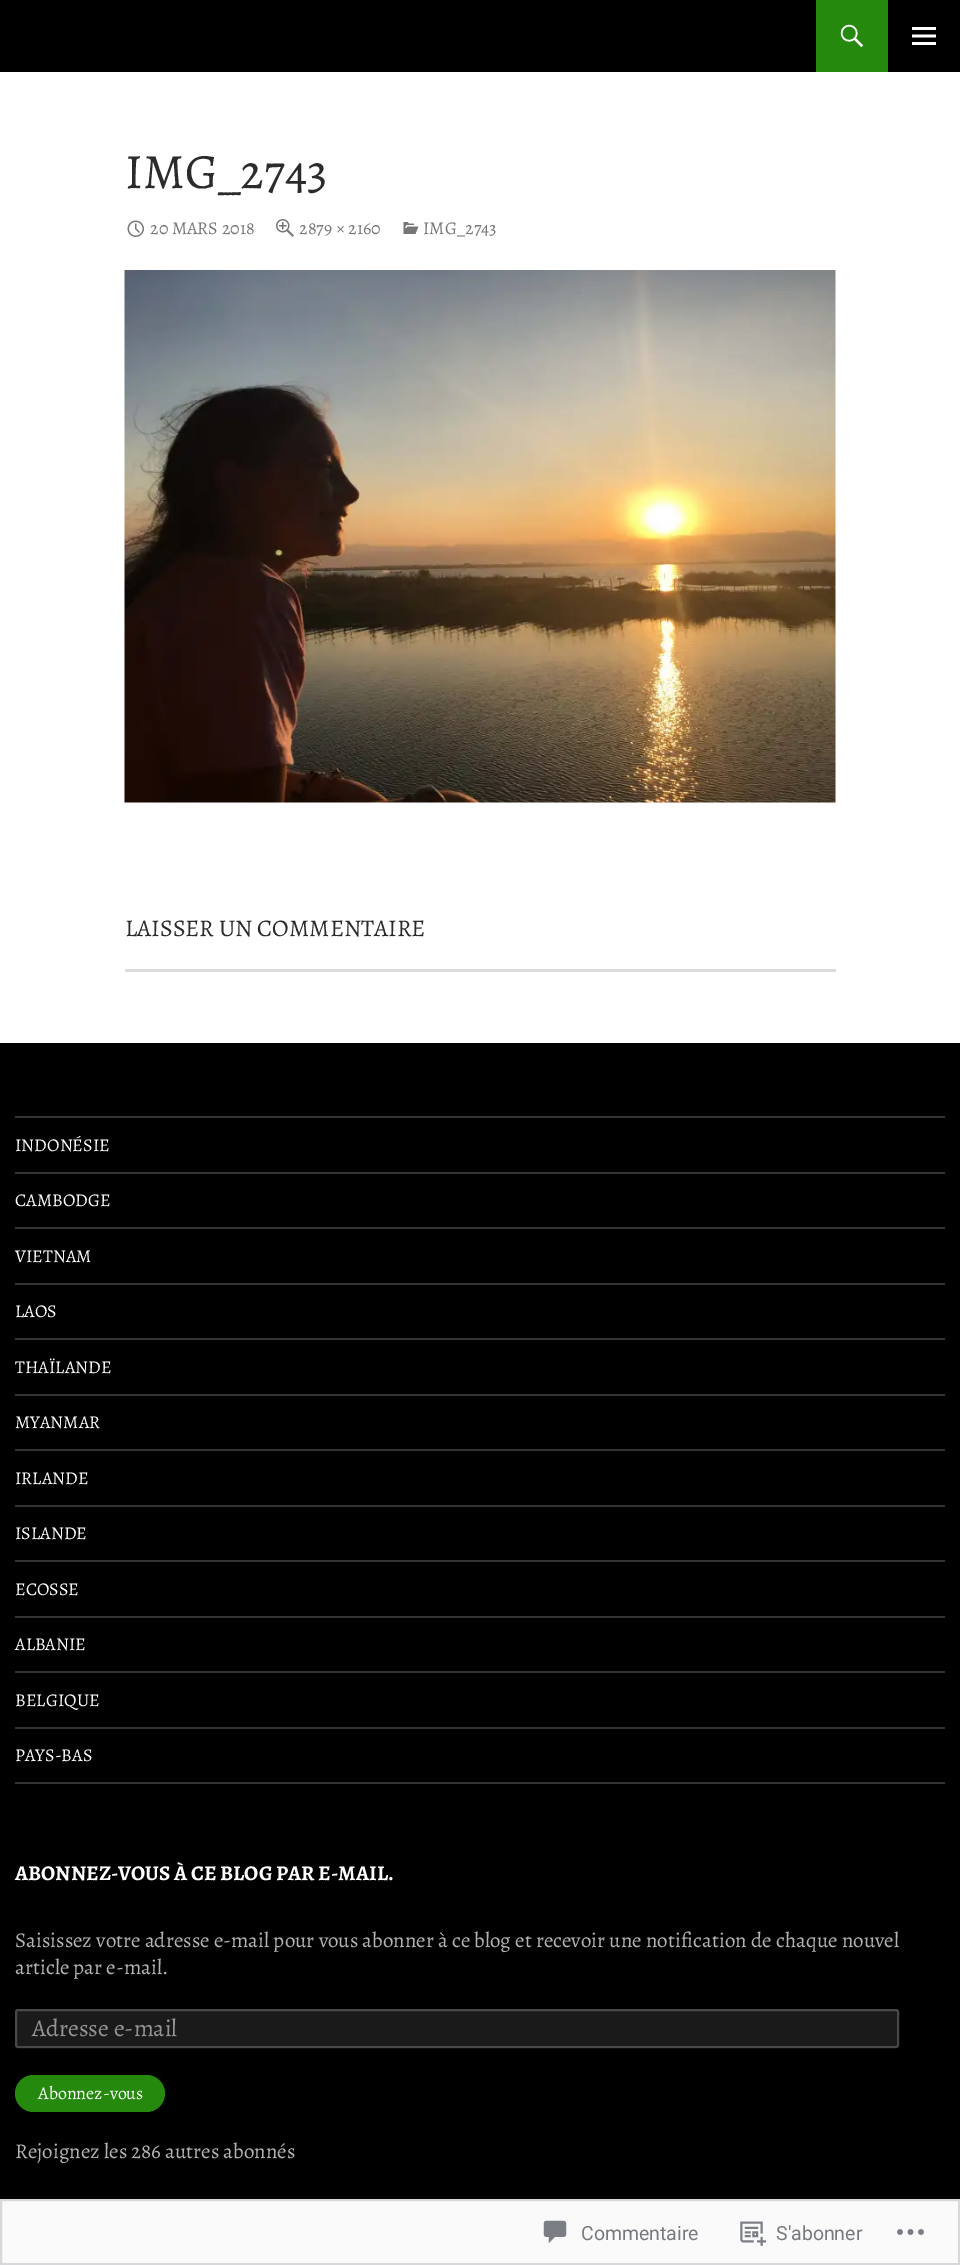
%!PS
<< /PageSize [960 2265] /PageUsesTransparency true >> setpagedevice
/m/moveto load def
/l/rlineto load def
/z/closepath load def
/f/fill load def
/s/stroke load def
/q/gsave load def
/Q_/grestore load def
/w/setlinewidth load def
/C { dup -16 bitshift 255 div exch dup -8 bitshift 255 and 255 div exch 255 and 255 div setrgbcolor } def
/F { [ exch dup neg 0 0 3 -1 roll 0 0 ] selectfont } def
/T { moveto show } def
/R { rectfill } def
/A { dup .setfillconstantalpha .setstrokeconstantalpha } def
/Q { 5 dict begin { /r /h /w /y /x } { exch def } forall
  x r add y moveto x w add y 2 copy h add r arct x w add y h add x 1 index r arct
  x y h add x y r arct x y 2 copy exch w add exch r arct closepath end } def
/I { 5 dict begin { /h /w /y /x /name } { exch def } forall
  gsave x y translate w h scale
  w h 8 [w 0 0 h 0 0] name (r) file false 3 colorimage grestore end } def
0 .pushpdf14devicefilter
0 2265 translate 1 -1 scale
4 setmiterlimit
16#FFFFFF C
0 0 960 2265 R
16#000000 C
0 0 960 72 R
16#24890D C
816 0 72 72 R
(1.rgb) 840 24 24 24 I
(2.rgb) 912 27 24 18 I
/Alegreya-Regular 49.5 F
16#2B2B2B C
(IMG_2743) 125 188 T
(3.rgb) 127 220 17 17 I
/Alegreya-Regular 18 F
16#767676 C
(20 MARS 2018) 150 234 T
(4.rgb) 276 219 18 18 I
(2879 × 2160) 299 234 T
(5.rgb) 403 222 16 12 I
(IMG_2743) 423 234 T
(6.rgb) 124 270 712 533 I
/Alegreya-Regular 24 F
16#2B2B2B C
(LAISSER UN COMMENTAIRE) 125 936 T
16#DCDCDE C
125 969 711 3 R
16#000000 C
0 1043 960 1156 R
16#333333 C
15 1782 930 2 R
15 1116 930 2 R
/Alegreya-Regular 18 F
16#FFFFFF C
(INDONÉSIE) 15 1151 T
16#333333 C
15 1172 930 2 R
16#FFFFFF C
(CAMBODGE) 15 1206 T
16#333333 C
15 1227 930 2 R
16#FFFFFF C
(VIETNAM) 15 1262 T
16#333333 C
15 1283 930 2 R
16#FFFFFF C
(LAOS) 15 1317 T
16#333333 C
15 1338 930 2 R
16#FFFFFF C
(THAÏLANDE) 15 1373 T
16#333333 C
15 1394 930 2 R
16#FFFFFF C
(MYANMAR) 15 1428 T
16#333333 C
15 1449 930 2 R
16#FFFFFF C
(IRLANDE) 15 1484 T
16#333333 C
15 1505 930 2 R
16#FFFFFF C
(ISLANDE) 15 1539 T
16#333333 C
15 1560 930 2 R
16#FFFFFF C
(ECOSSE) 15 1595 T
16#333333 C
15 1616 930 2 R
16#FFFFFF C
(ALBANIE) 15 1650 T
16#333333 C
15 1671 930 2 R
16#FFFFFF C
(BELGIQUE) 15 1706 T
16#333333 C
15 1727 930 2 R
16#FFFFFF C
(PAYS-BAS) 15 1761 T
/Alegreya-Bold 21 F
(ABONNEZ-VOUS À CE BLOG PAR E-MAIL.) 15 1880 T
/Alegreya-Regular 21 F
16#B3B3B3 C
(Saisissez votre adresse e-mail pour vous abonner à ce blog et recevoir une notification de chaque nouvel) 15 1947 T
(article par e-mail.) 15 1974 T
16#1A1A1A C
15 2009 884 39 3 Q f
0.2 A
16#FFFFFF C
2 w
16 2010 882 37 2 Q s
/Alegreya-Regular 24 F
1 A
16#939393 C
(Adresse e-mail) 32 2036 T
16#24890D C
15 2075 150 37 18.5 Q f
/Alegreya-Regular 18 F
16#FFFFFF C
(Abonnez-vous) 38 2099 T
/Alegreya-Regular 21 F
16#B3B3B3 C
(Rejoignez les 286 autres abonnés) 15 2158 T
16#FAFAFA C
1 2200 m 958 0 l 0 64 l -958 0 l z q f Q_
16#D8D8DA C
s
(7.rgb) 543 2220 24 24 I
/Roboto-Regular 19.5 F
16#767A7F C
(Commentaire) 581 2240 T
(8.rgb) 740 2221 27 25 I
(S'abonner) 776 2240 T
(9.rgb) 897 2229 27 6 I
.poppdf14devicefilter showpage
